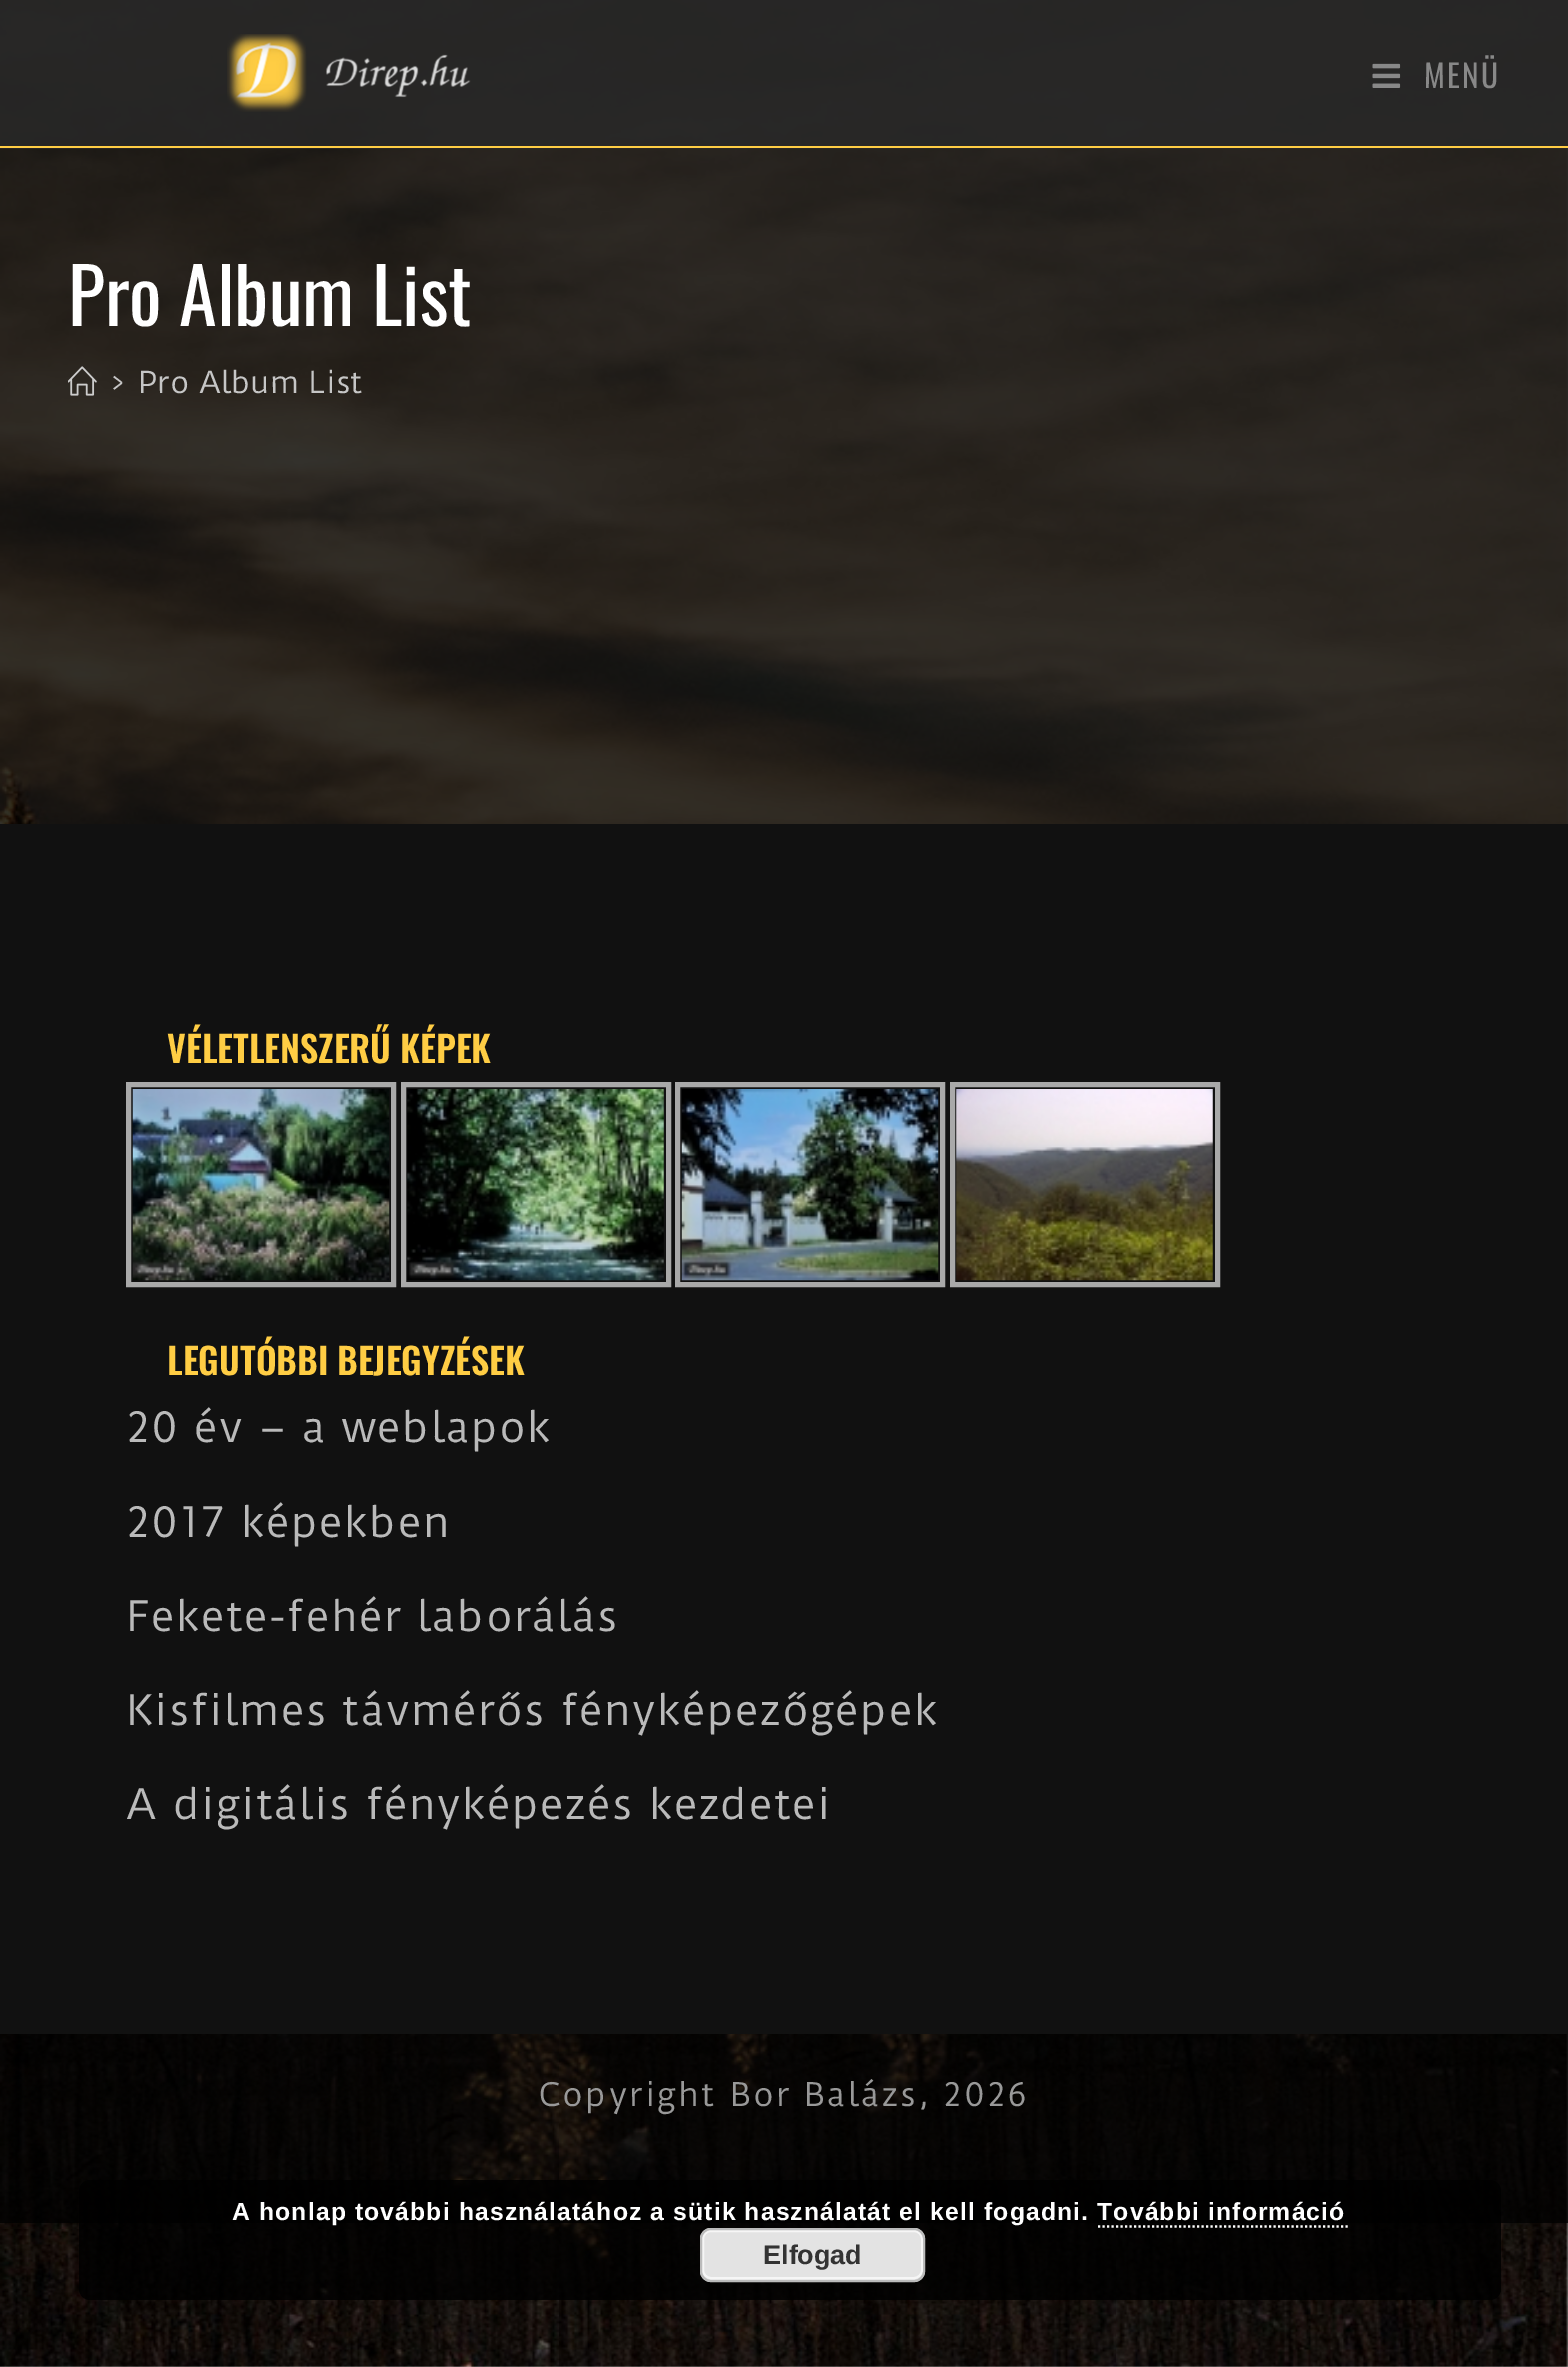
%!PS
<< /PageSize [1568 2367] /PageUsesTransparency true >> setpagedevice
/m/moveto load def
/l/rlineto load def
/f/fill load def
/s/stroke load def
/q/gsave load def
/Q_/grestore load def
/w/setlinewidth load def
/C { dup -16 bitshift 255 div exch dup -8 bitshift 255 and 255 div exch 255 and 255 div setrgbcolor } def
/F { [ exch dup neg 0 0 3 -1 roll 0 0 ] selectfont } def
/T { moveto show } def
/R { rectfill } def
/A { dup .setfillconstantalpha .setstrokeconstantalpha } def
/Q { 5 dict begin { /r /h /w /y /x } { exch def } forall
  x r add y moveto x w add y 2 copy h add r arct x w add y h add x 1 index r arct
  x y h add x y r arct x y 2 copy exch w add exch r arct closepath end } def
/S { 12 dict begin { /a /b /q /h /w /y /x } { exch def } forall gsave /was 0 def
  9 -2 -9 { dup b mul 4 div /e exch def 1 sub .425 mul 2.718 exch exp 1 add a .99 .min exch div /now exch def
    1 1 now sub 1 was sub div sub A /was now def
    w h .min e 2 mul add 0 gt { x e sub y e sub w e 2 mul add h e 2 mul add
      q e add b .6 mul add w h .min 2 div e add .min 0 .max Q fill } if } for grestore end } def
/I { 5 dict begin { /h /w /y /x /name } { exch def } forall
  gsave x y translate w h scale
  w h 8 [w 0 0 h 0 0] name (r) file false 3 colorimage grestore end } def
0 .pushpdf14devicefilter
0 2367 translate 1 -1 scale
4 setmiterlimit
16#E9E9E9 C
0 0 1568 2367 R
16#2F2F2F C
1566 0 2 2223 R
(1.rgb) 0 0 1568 2367 I
q
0 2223 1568 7 rectclip
16#000000 C
0 2 1568 2223 0 4.5 .15 S
Q_
0.8 A
16#282828 C
0 0 1568 149 R
1 A
16#FFCD44 C
0 146 1568 2 R
(2.rgb) 227 34 244 78 I
(3.rgb) 1372 63 29 25 I
/Oswald-Regular 31.5 F
16#888888 C
1424 88 m 2.25 0 (MENÜ) ashow
/Oswald-Regular 76.5 F
16#FFFFFF C
(Pro Album List) 68 326 T
(4.rgb) 68 366 29 30 I
/DuruSans-Regular 29.25 F
16#C6C6C6 C
(>) 110 393 T
(Pro Album List) 138 393 T
16#111111 C
0 824 1568 1210 R
/Oswald-SemiBold 36 F
16#FFCD44 C
(VÉLETLENSZERŰ KÉPEK) 167 1063 T
16#A9A9A9 C
5 w
128.5 1084.5 265 200 rectstroke
(5.rgb) 132 1089 258 192 I
403.5 1084.5 265 200 rectstroke
(6.rgb) 407 1089 257 192 I
677.5 1084.5 265 200 rectstroke
(7.rgb) 681 1089 258 192 I
952.5 1084.5 265 200 rectstroke
(8.rgb) 956 1089 257 192 I
16#FFCD44 C
(LEGUTÓBBI BEJEGYZÉSEK) 167 1375 T
/DuruSans-Regular 40.5 F
16#BABABA C
126 1442 m 1.35 0 (20 év – a weblapok) ashow
126 1537 m 1.35 0 (2017 képekben) ashow
126 1631 m 1.35 0 (Fekete-fehér laborálás) ashow
126 1725 m 1.35 0 (Kisfilmes távmérős fényképezőgépek) ashow
126 1819 m 1.35 0 (A digitális fényképezés kezdetei) ashow
/DuruSans-Regular 31.5 F
16#999999 C
539 2106 m 2.25 0 (Copyright Bor Balázs, 2026) ashow
0.85 A
16#000000 C
79 2180 1422 120 11 Q f
/LiberationSans-Bold 24.75 F
1 A
16#FFFFFF C
232 2220 m 1.12 0 (A honlap további használatához a sütik használatát el kell fogadni. További információ) ashow
2.2 w
[2.25 2.25] 0 setdash
1098 2226.5 m 250 0 l s
16#E3E3E3 C
700 2228 225 54 11 Q f
16#F6F6F6 C
2 w
[] 0 setdash
703 2231 219 47 8 Q s
16#BBBBBB C
701 2229 223 52 10 Q s
/LiberationSans-Bold 27 F
16#333333 C
(Elfogad) 763 2264 T
.poppdf14devicefilter showpage
